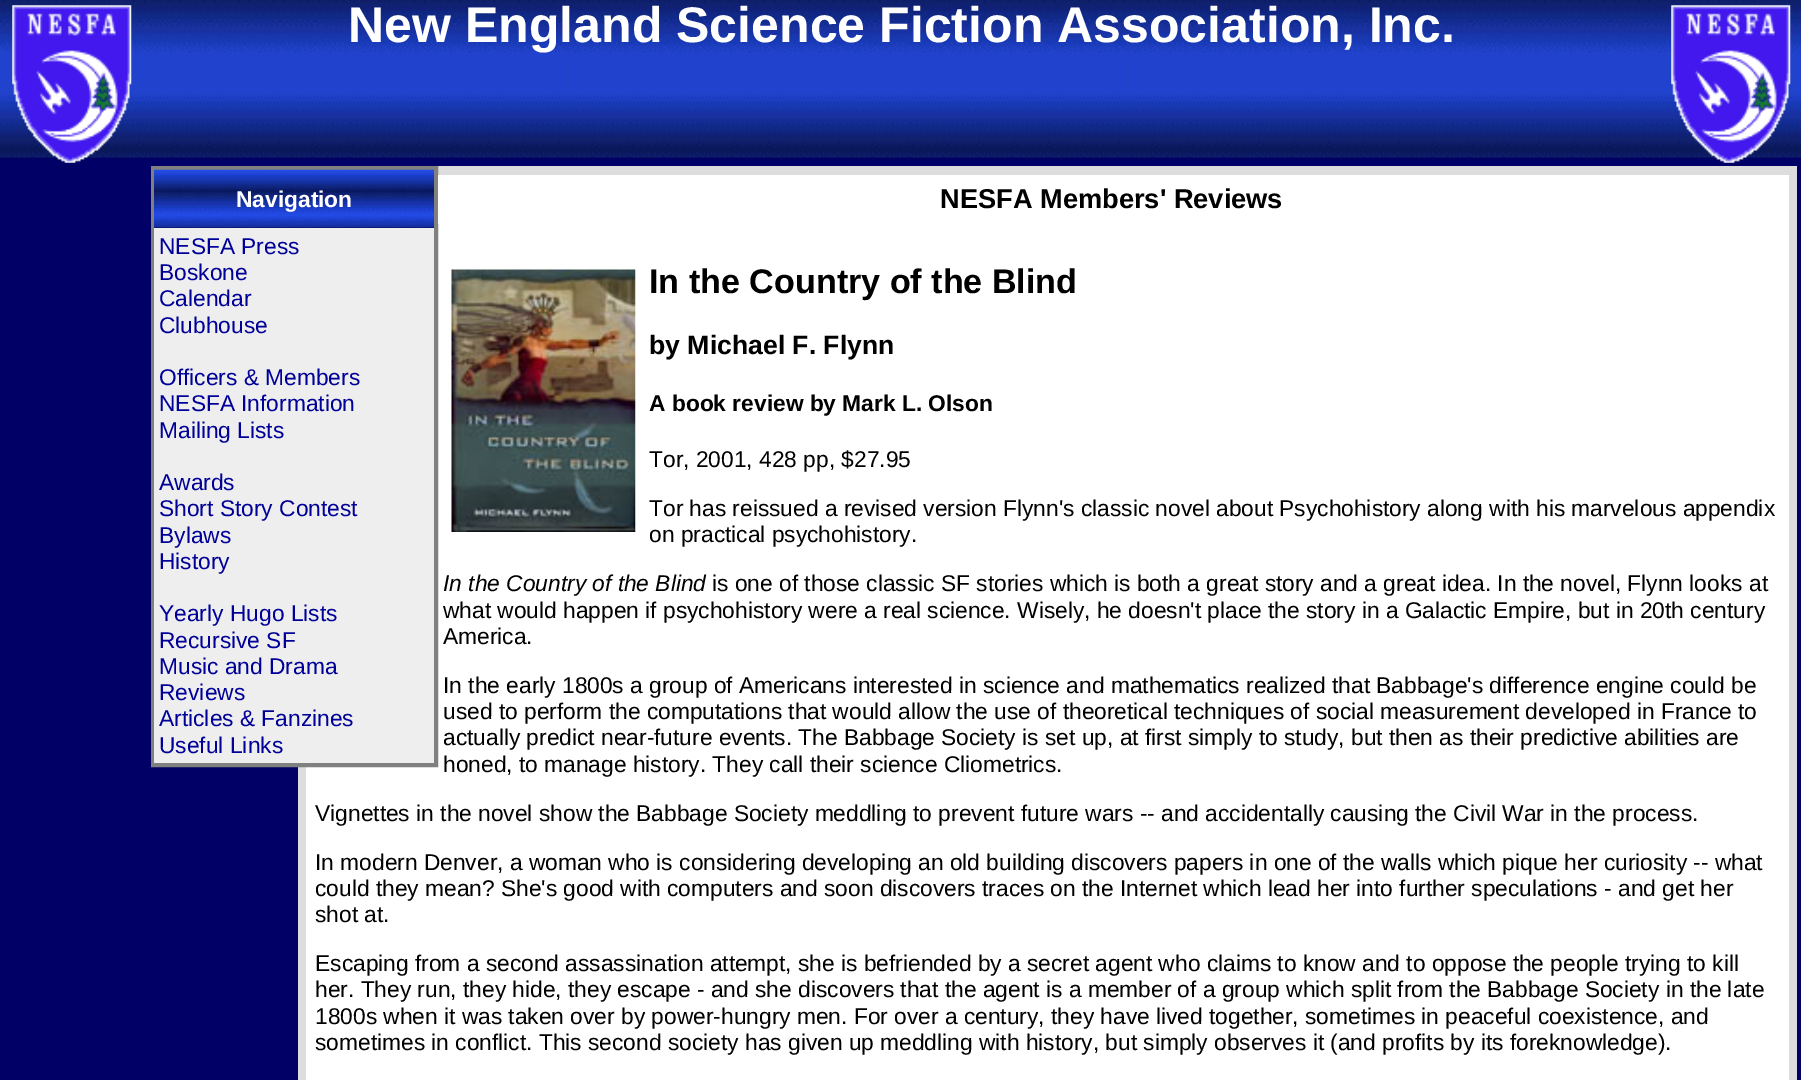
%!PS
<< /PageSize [1801 1080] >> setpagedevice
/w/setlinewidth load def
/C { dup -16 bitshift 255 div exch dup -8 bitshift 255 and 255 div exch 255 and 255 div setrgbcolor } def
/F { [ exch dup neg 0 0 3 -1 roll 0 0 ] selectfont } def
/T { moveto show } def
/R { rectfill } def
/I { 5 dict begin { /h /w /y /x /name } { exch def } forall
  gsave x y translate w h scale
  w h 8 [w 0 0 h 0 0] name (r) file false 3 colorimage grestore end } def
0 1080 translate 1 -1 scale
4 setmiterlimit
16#000066 C
0 0 1801 1080 R
16#040359 C
0 157 1801 1 R
(1.rgb) 0 0 1801 158 I
(2.rgb) 12 5 120 158 I
/LiberationSans-Bold 50.05 F
16#FFFFFF C
(New England Science Fiction Association, Inc.) 348 42 T
(3.rgb) 1671 5 120 158 I
16#DDDDDD C
298 166 1499 914 R
16#FFFFFF C
306 224 1483 856 R
16#808080 C
4 w
153 168 283 597 rectstroke
16#040359 C
154 227 280 1 R
(4.rgb) 154 169 280 59 I
/LiberationSans-Bold 22.75 F
16#FFFFFF C
(Navigation) 236 207 T
16#EEEEEE C
154 228 280 535 R
/LiberationSans-Regular 22.75 F
16#000099 C
(NESFA Press) 159 254 T
(Boskone) 159 280 T
(Calendar) 159 306 T
(Clubhouse) 159 333 T
(Officers & Members) 159 385 T
(NESFA Information) 159 411 T
(Mailing Lists) 159 438 T
(Awards) 159 490 T
(Short Story Contest) 159 516 T
(Bylaws) 159 543 T
(History) 159 569 T
(Yearly Hugo Lists) 159 621 T
(Recursive SF) 159 648 T
(Music and Drama) 159 674 T
(Reviews) 159 700 T
(Articles & Fanzines) 159 726 T
(Useful Links) 159 753 T
16#FFFFFF C
438 175 1351 49 R
/LiberationSans-Bold 27.25 F
16#000000 C
(NESFA Members' Reviews) 940 208 T
(5.rgb) 451 269 185 263 I
/LiberationSans-Bold 34.1 F
(In the Country of the Blind) 649 293 T
/LiberationSans-Bold 26.6 F
(by Michael F. Flynn) 649 354 T
/LiberationSans-Bold 22.75 F
(A book review by Mark L. Olson) 649 411 T
/LiberationSans-Regular 22.75 F
(Tor, 2001, 428 pp, $27.95) 649 467 T
(Tor has reissued a revised version Flynn's classic novel about Psychohistory along with his marvelous appendix) 649 516 T
(on practical psychohistory.) 649 542 T
/LiberationSans-Italic 22.75 F
(In the Country of the Blind) 443 591 T
/LiberationSans-Regular 22.75 F
(is one of those classic SF stories which is both a great story and a great idea. In the novel, Flynn looks at) 712 591 T
(what would happen if psychohistory were a real science. Wisely, he doesn't place the story in a Galactic Empire, but in 20th century) 443 618 T
(America.) 443 644 T
(In the early 1800s a group of Americans interested in science and mathematics realized that Babbage's difference engine could be) 443 693 T
(used to perform the computations that would allow the use of theoretical techniques of social measurement developed in France to) 443 719 T
(actually predict near-future events. The Babbage Society is set up, at first simply to study, but then as their predictive abilities are) 443 745 T
(honed, to manage history. They call their science Cliometrics.) 443 772 T
(Vignettes in the novel show the Babbage Society meddling to prevent future wars -- and accidentally causing the Civil War in the process.) 315 821 T
(In modern Denver, a woman who is considering developing an old building discovers papers in one of the walls which pique her curiosity -- what) 315 870 T
(could they mean? She's good with computers and soon discovers traces on the Internet which lead her into further speculations - and get her) 315 896 T
(shot at.) 315 922 T
(Escaping from a second assassination attempt, she is befriended by a secret agent who claims to know and to oppose the people trying to kill) 315 971 T
(her. They run, they hide, they escape - and she discovers that the agent is a member of a group which split from the Babbage Society in the late) 315 997 T
(1800s when it was taken over by power-hungry men. For over a century, they have lived together, sometimes in peaceful coexistence, and) 315 1024 T
(sometimes in conflict. This second society has given up meddling with history, but simply observes it \(and profits by its foreknowledge\).) 315 1050 T
showpage
